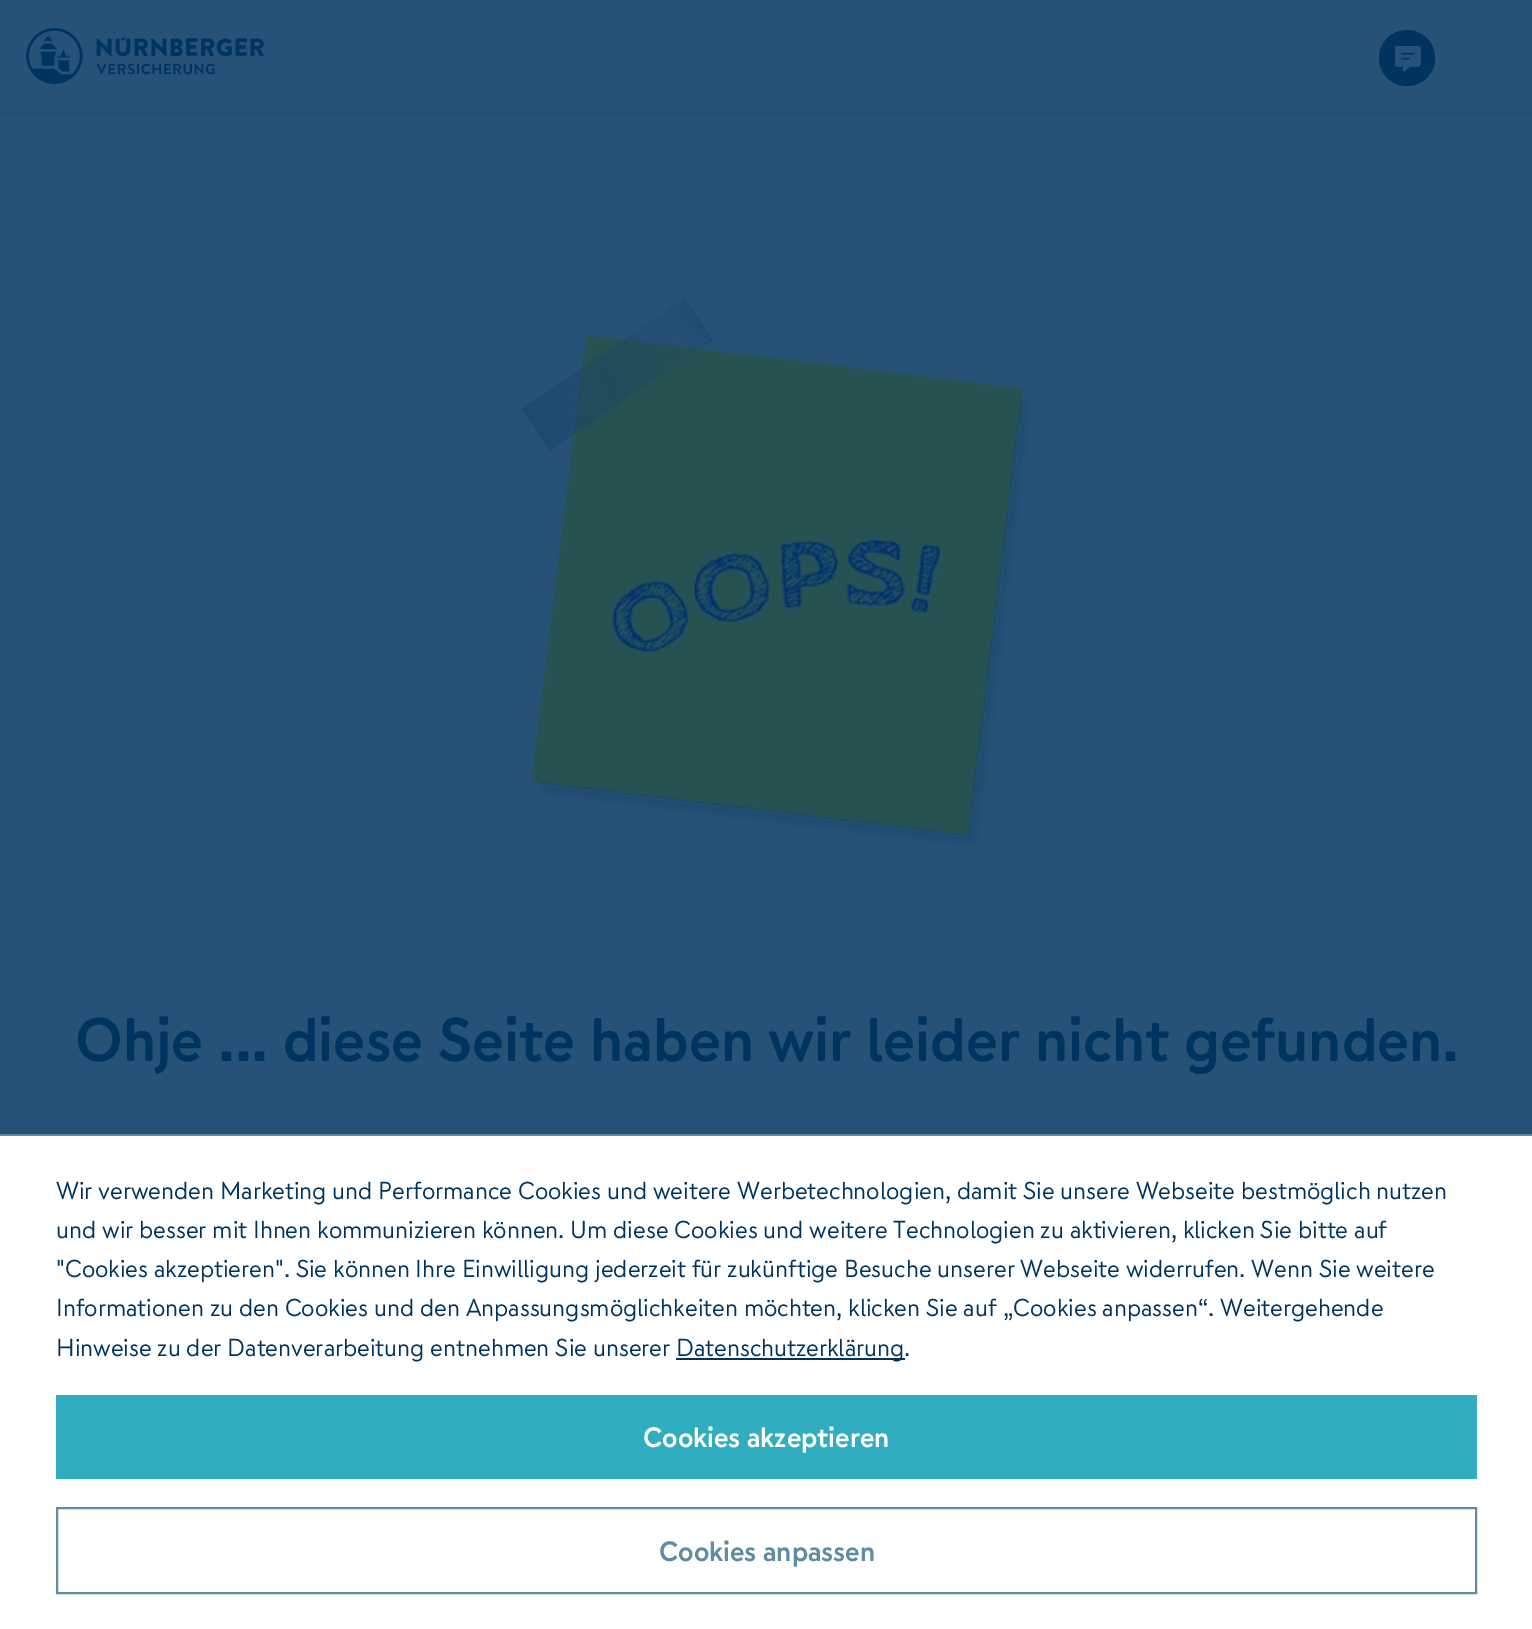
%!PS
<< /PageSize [1532 1629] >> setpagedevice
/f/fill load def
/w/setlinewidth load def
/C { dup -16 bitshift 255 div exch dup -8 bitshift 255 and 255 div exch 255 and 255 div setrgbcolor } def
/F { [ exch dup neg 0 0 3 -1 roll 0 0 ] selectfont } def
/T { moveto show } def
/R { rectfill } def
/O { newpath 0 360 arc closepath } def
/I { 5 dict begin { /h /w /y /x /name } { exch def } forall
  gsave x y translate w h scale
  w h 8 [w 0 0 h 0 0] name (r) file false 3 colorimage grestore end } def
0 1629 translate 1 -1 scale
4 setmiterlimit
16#265278 C
0 0 1532 1629 R
16#224F76 C
0 112 1532 4 R
(1.rgb) 26 28 238 56 I
16#00335E C
1407 58 28 O f
(2.rgb) 1395 46 26 26 I
(3.rgb) 519 297 514 552 I
/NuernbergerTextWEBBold-Bold 61.5 F
16#003460 C
(Ohje ... diese Seite haben wir leider nicht gefunden.) 75 1061 T
16#FFFFFF C
0 1136 1532 493 R
16#608CA1 C
0 1134 1532 2 R
/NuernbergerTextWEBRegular-Regular 24.5 F
16#003460 C
(Wir verwenden Marketing und Performance Cookies und weitere Werbetechnologien, damit Sie unsere Webseite bestmöglich nutzen) 56 1199 T
(und wir besser mit Ihnen kommunizieren können. Um diese Cookies und weitere Technologien zu aktivieren, klicken Sie bitte auf) 56 1238 T
("Cookies akzeptieren". Sie können Ihre Einwilligung jederzeit für zukünftige Besuche unserer Webseite widerrufen. Wenn Sie weitere) 56 1277 T
(Informationen zu den Cookies und den Anpassungsmöglichkeiten möchten, klicken Sie auf „Cookies anpassen“. Weitergehende) 56 1316 T
(Hinweise zu der Datenverarbeitung entnehmen Sie unserer) 56 1356 T
676 1358 229 2 R
(Datenschutzerklärung.) 676 1356 T
16#30AEC0 C
56 1395 1421 84 R
/NuernbergerTextWEBBold-Bold 28 F
16#FFFFFF C
(Cookies akzeptieren) 643 1447 T
16#608CA1 C
2 w
57 1508 1419 85 rectstroke
(Cookies anpassen) 659 1561 T
showpage
